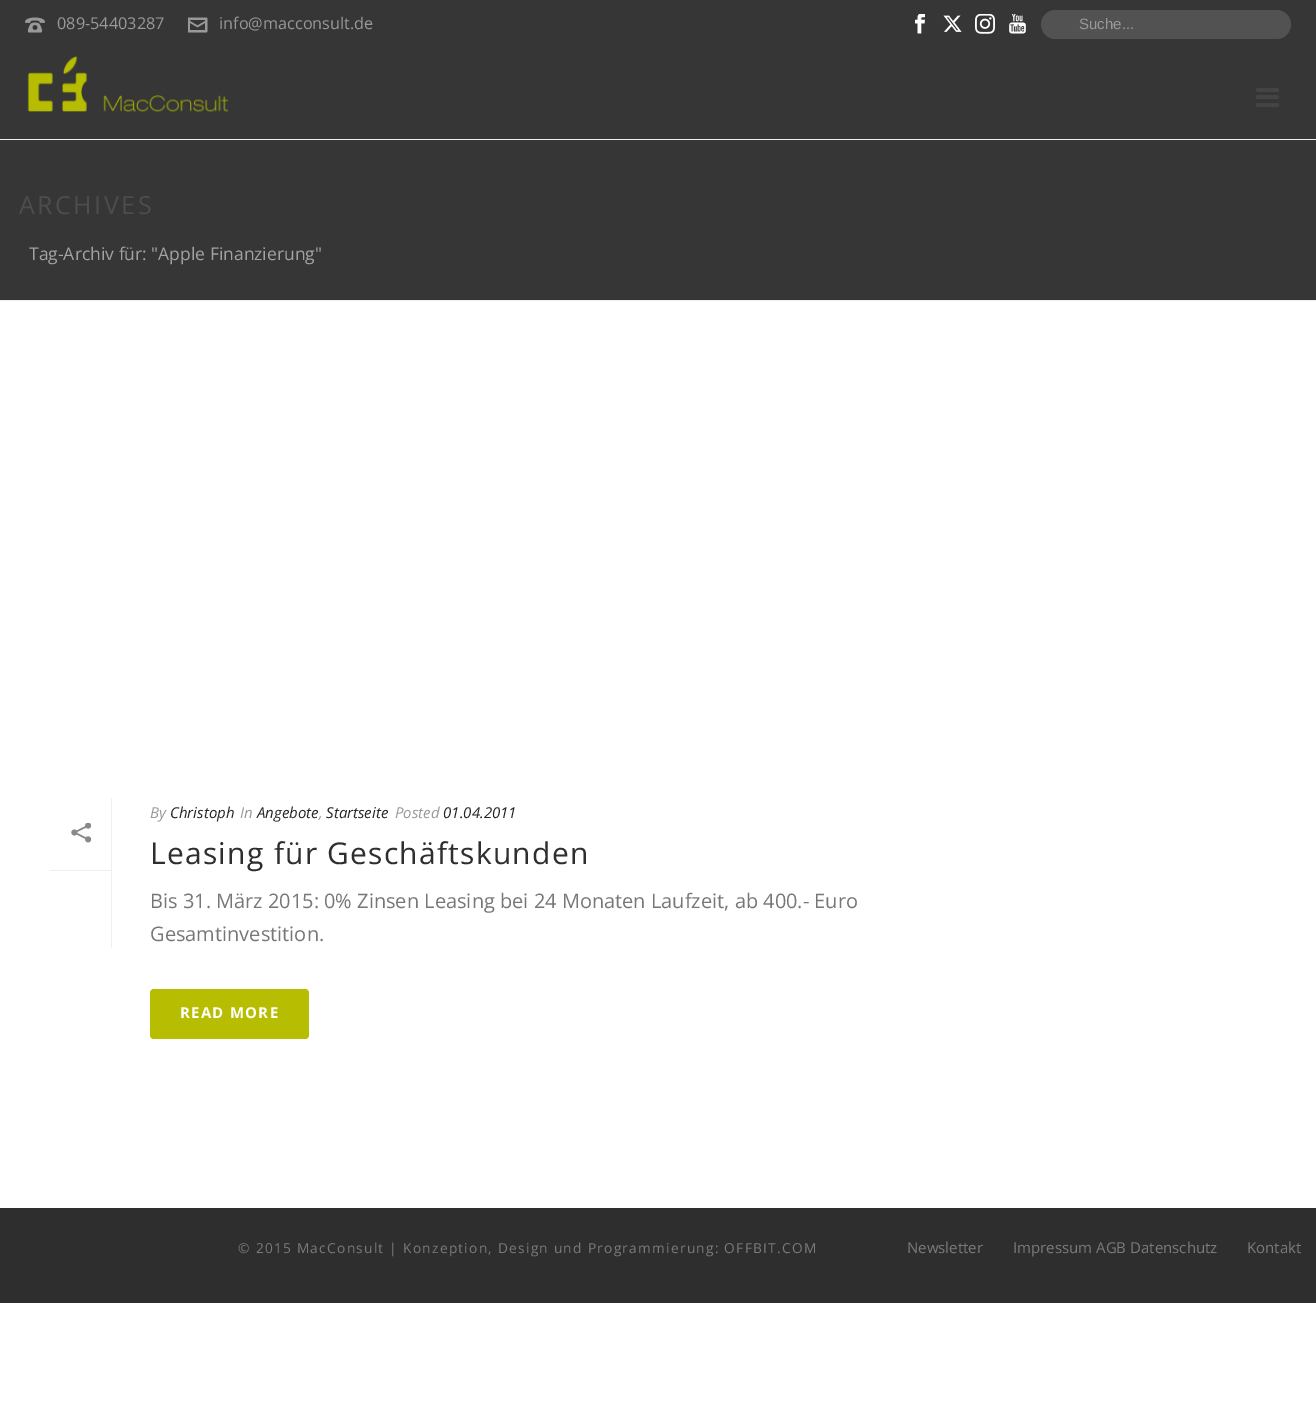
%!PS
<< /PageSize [1316 1408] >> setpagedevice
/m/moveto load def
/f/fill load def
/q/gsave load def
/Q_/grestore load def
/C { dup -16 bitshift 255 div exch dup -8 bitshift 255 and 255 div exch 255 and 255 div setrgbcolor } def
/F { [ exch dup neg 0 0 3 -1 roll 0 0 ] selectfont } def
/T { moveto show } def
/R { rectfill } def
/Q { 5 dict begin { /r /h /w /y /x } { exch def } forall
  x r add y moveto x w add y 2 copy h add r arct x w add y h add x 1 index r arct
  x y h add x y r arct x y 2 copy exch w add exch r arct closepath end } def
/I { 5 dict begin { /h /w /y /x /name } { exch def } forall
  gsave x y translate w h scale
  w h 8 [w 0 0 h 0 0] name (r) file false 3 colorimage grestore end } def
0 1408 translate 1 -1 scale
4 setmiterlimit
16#FFFFFF C
0 0 1316 1408 R
16#353635 C
0 0 1316 300 R
16#EDEDED C
0 300 1316 1 R
(1.rgb) 25 17 20 16 I
/OpenSans-Regular 16.25 F
16#999999 C
(089-54403287) 57 29 T
(2.rgb) 188 17 20 16 I
(info@macconsult.de) 219 29 T
(3.rgb) 915 14 10 20 I
(4.rgb) 943 15 19 17 I
(5.rgb) 975 14 20 20 I
(6.rgb) 1009 14 17 20 I
q
1041 0 250 44 22 Q clip newpath
16#515251 C
1041 10 250 29 14.5 Q f
Q_
/LiberationSans-Regular 15 F
(Suche...) 1079 29 T
16#EDEDED C
0 139 1316 1 R
(7.rgb) 27 56 201 56 I
16#444444 C
1256 88 23 4 2 Q f
1256 95 23 4 2 Q f
1256 103 23 4 2 Q f
/OpenSans-Regular 25 F
16#4D4D4D C
19 214 m 2.5 0 (ARCHIVES) ashow
/OpenSans-Regular 17.5 F
16#A3A3A3 C
(Tag-Archiv für: "Apple Finanzierung") 29 260 T
16#EFEFEF C
111 798 1 150 R
50 870 61 1 R
(8.rgb) 71 823 20 20 I
/OpenSans-Italic 15 F
16#999999 C
(By) 150 818 T
16#252525 C
(Christoph) 170 818 T
16#999999 C
(In) 240 818 T
16#252525 C
(Angebote) 257 818 T
16#999999 C
(,) 319 818 T
16#252525 C
(Startseite) 326 818 T
16#999999 C
(Posted) 395 818 T
16#252525 C
(01.04.2011) 443 818 T
/OpenSans-Regular 30 F
16#2E2E2E C
150 864 m 1.25 0 (Leasing für Geschäftskunden) ashow
/OpenSans-Regular 20 F
16#777777 C
(Bis 31. März 2015: 0% Zinsen Leasing bei 24 Monaten Laufzeit, ab 400.- Euro) 150 908 T
(Gesamtinvestition.) 150 941 T
16#B7BD00 C
150 989 159 50 4 Q f
/OpenSans-Bold 15 F
16#FFFFFF C
180 1018 m 1.25 0 (READ MORE) ashow
16#2E2E2E C
0 1208 1316 95 R
/OpenSans-Regular 13.75 F
16#797B7D C
238 1253 m 1.25 0 (© 2015 MacConsult | Konzeption, Design und Programmierung: OFFBIT.COM) ashow
/OpenSans-Regular 15 F
(Newsletter) 907 1253 T
(Impressum AGB Datenschutz) 1013 1253 T
(Kontakt) 1247 1253 T
showpage
